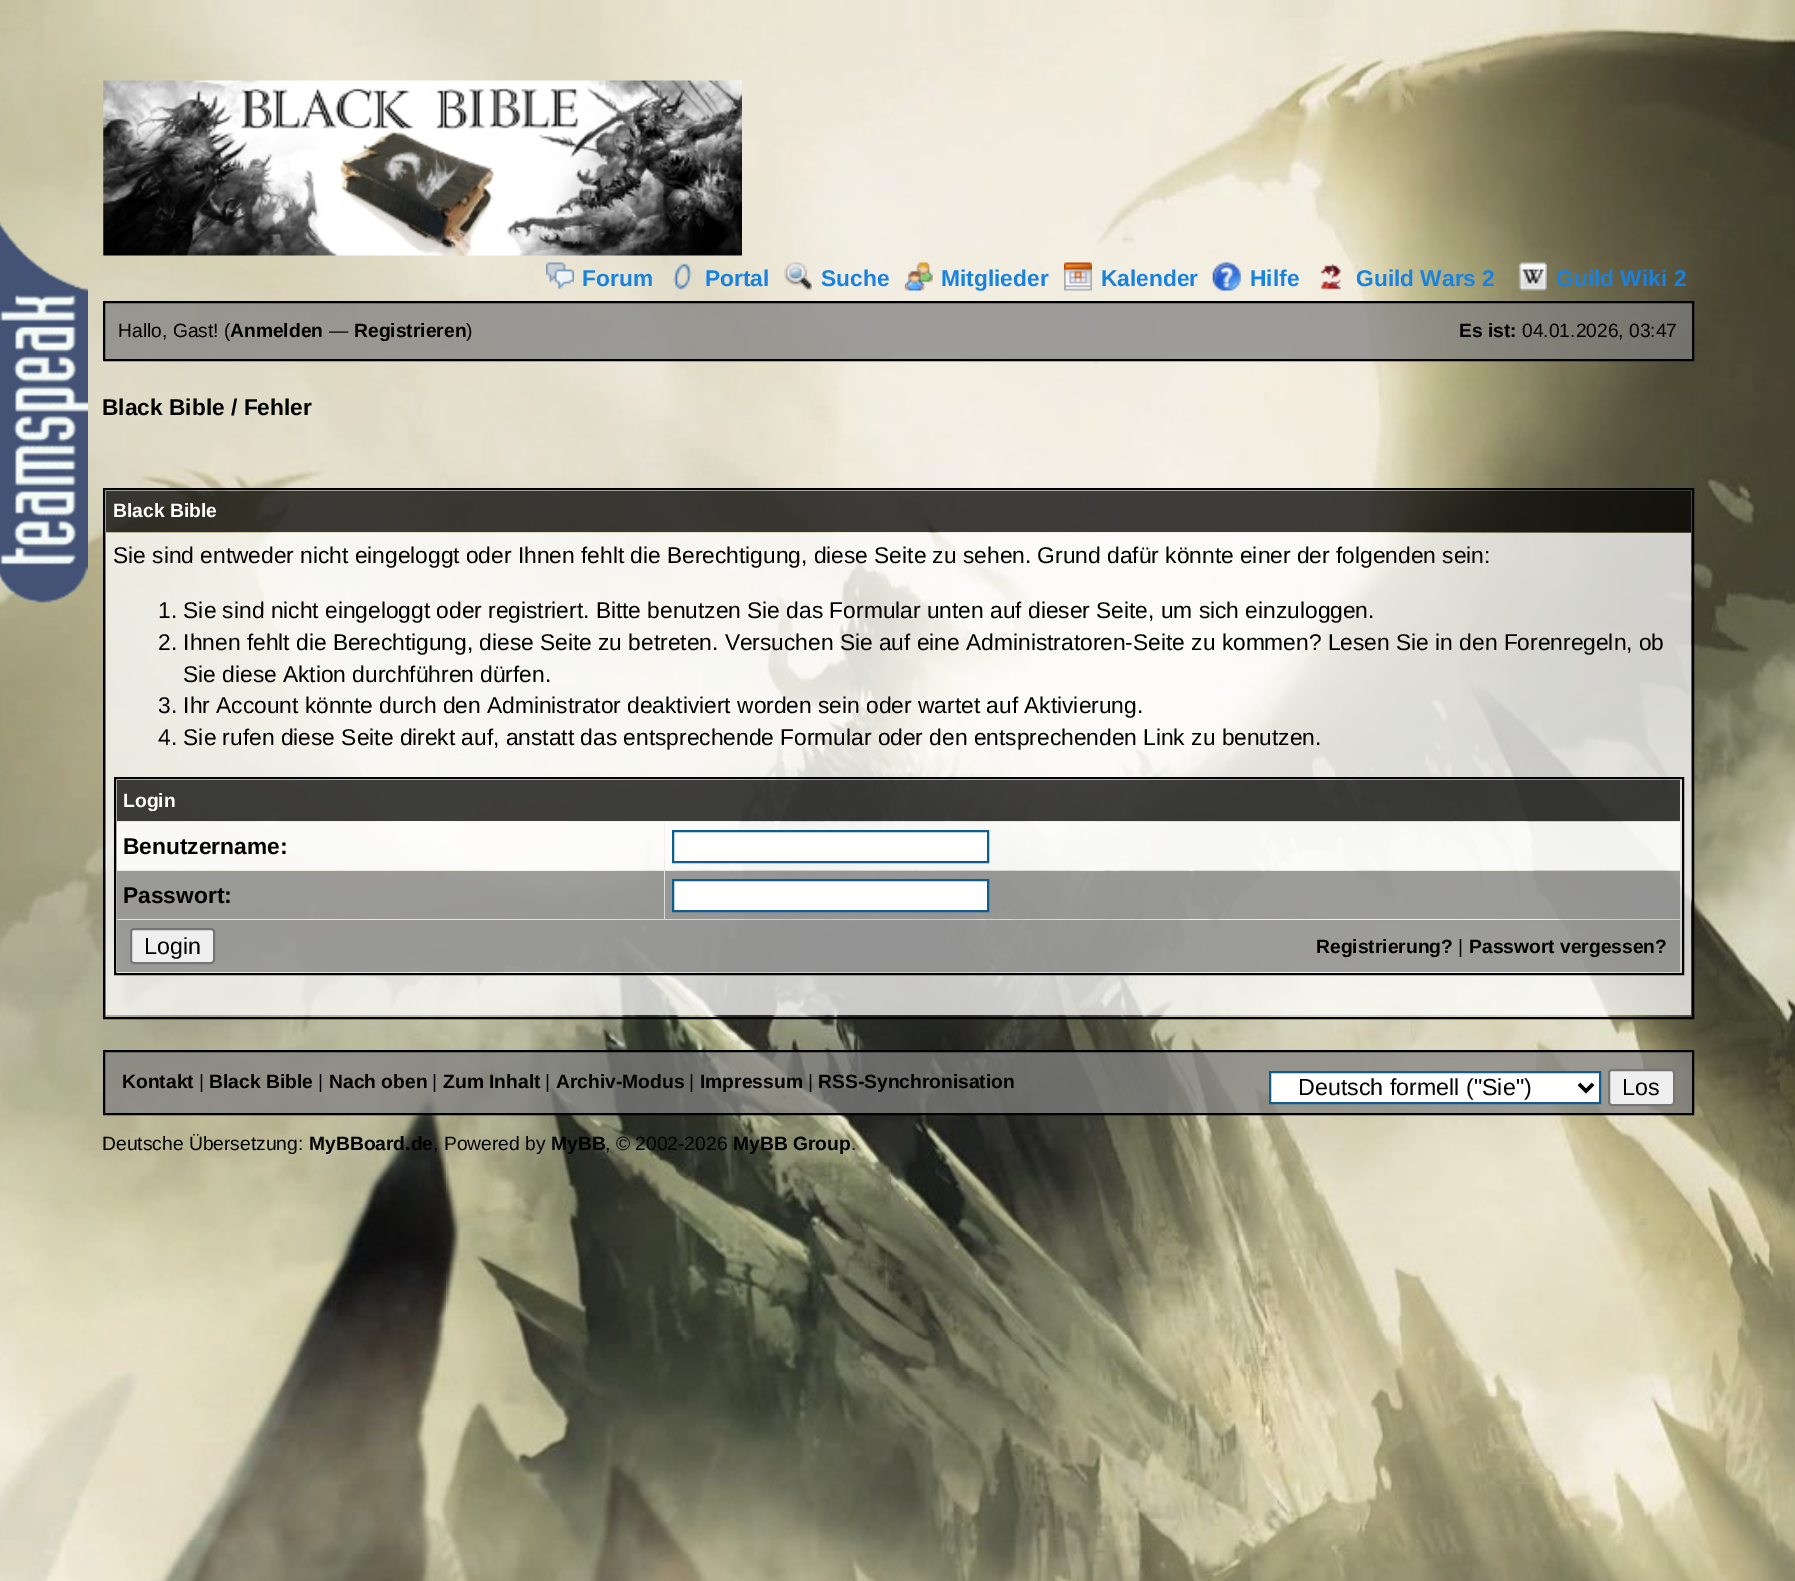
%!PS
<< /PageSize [1795 1581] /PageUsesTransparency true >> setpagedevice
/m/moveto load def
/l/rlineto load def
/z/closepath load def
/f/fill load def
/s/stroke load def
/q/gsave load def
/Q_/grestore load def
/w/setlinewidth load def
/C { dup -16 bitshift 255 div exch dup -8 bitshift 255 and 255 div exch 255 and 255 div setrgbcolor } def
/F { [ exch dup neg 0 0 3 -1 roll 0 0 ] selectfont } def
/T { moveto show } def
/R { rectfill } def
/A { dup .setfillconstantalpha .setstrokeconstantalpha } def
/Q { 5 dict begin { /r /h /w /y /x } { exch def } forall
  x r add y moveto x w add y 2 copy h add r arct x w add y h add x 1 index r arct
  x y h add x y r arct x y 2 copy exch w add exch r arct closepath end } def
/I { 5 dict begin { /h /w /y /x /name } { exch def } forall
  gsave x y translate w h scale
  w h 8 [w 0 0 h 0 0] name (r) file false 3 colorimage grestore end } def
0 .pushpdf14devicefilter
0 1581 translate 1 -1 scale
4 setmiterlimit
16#FFFFFF C
0 0 1795 1581 R
(1.rgb) 0 0 1795 1581 I
(2.rgb) 0 222 88 381 I
(3.rgb) 103 80 639 176 I
(4.rgb) 546 262 28 28 I
/LiberationSans-Bold 22.75 F
16#1882DF C
(Forum) 582 286 T
(5.rgb) 673 263 19 27 I
(Portal) 705 286 T
(6.rgb) 784 262 28 29 I
(Suche) 821 286 T
(7.rgb) 904 262 29 29 I
(Mitglieder) 941 286 T
(8.rgb) 1064 262 28 29 I
(Kalender) 1101 286 T
(9.rgb) 1212 262 29 29 I
(Hilfe) 1250 286 T
(10.rgb) 1320 263 21 27 I
(Guild Wars 2) 1356 286 T
(11.rgb) 1518 262 29 29 I
(Guild Wiki 2) 1556 286 T
0.75 A
16#808080 C
104 302 m 1589 0 l 0 58 l -1589 0 l z f
1 A
16#000000 C
2 w
104 302 m 1589 0 l 0 58 l -1589 0 l z s
/LiberationSans-Regular 19.25 F
(Hallo, Gast! \() 118 337 T
/LiberationSans-Bold 19.25 F
(Anmelden) 230 337 T
/LiberationSans-Regular 19.25 F
(—) 329 337 T
/LiberationSans-Bold 19.25 F
(Registrieren) 354 337 T
/LiberationSans-Regular 19.25 F
(\)) 466 337 T
/LiberationSans-Bold 19.25 F
(Es ist:) 1459 337 T
/LiberationSans-Regular 19.25 F
(04.01.2026, 03:47) 1522 337 T
/LiberationSans-Bold 22.75 F
(Black Bible / Fehler) 102 415 T
104 489 1589 529 rectstroke
0.75 A
106 491 1585 41 R
/LiberationSans-Bold 19.25 F
1 A
16#FFFFFF C
(Black Bible) 113 517 T
0.75 A
106 533 1585 482 R
/LiberationSans-Regular 22.75 F
1 A
16#000000 C
(Sie sind entweder nicht eingeloggt oder Ihnen fehlt die Berechtigung, diese Seite zu sehen. Grund dafür könnte einer der folgenden sein:) 113 563 T
(1. Sie sind nicht eingeloggt oder registriert. Bitte benutzen Sie das Formular unten auf dieser Seite, um sich einzuloggen.) 158 618 T
(2. Ihnen fehlt die Berechtigung, diese Seite zu betreten. Versuchen Sie auf eine Administratoren-Seite zu kommen? Lesen Sie in den Forenregeln, ob) 158 650 T
(Sie diese Aktion durchführen dürfen.) 183 682 T
(3. Ihr Account könnte durch den Administrator deaktiviert worden sein oder wartet auf Aktivierung.) 158 713 T
(4. Sie rufen diese Seite direkt auf, anstatt das entsprechende Formular oder den entsprechenden Link zu benutzen.) 158 745 T
115 778 1568 196 rectstroke
0.75 A
117 780 1563 41 R
/LiberationSans-Bold 19.25 F
1 A
16#FFFFFF C
(Login) 123 807 T
0.75 A
117 822 547 48 R
/LiberationSans-Bold 22.75 F
1 A
16#000000 C
(Benutzername:) 123 854 T
0.75 A
16#FFFFFF C
665 822 1015 48 R
1 A
673 831 m 315 0 l 0 31 l -315 0 l z q f Q_
16#0F5C8E C
s
0.75 A
16#808080 C
117 871 547 48 R
1 A
16#000000 C
(Passwort:) 123 903 T
0.75 A
16#808080 C
665 871 1015 48 R
1 A
16#FFFFFF C
673 880 m 315 0 l 0 31 l -315 0 l z q f Q_
16#0F5C8E C
s
0.75 A
16#808080 C
117 920 1563 52 R
1 A
16#EFEFEF C
131 929 83 34 3 Q q f Q_
16#767676 C
s
/LiberationSans-Regular 23.25 F
16#000000 C
(Login) 144 954 T
/LiberationSans-Bold 19.25 F
(Registrierung?) 1316 953 T
/LiberationSans-Regular 19.25 F
(|) 1458 953 T
/LiberationSans-Bold 19.25 F
(Passwort vergessen?) 1469 953 T
0.75 A
16#808080 C
104 1051 m 1589 0 l 0 63 l -1589 0 l z f
1 A
16#000000 C
104 1051 m 1589 0 l 0 63 l -1589 0 l z s
(Kontakt) 122 1088 T
/LiberationSans-Regular 19.25 F
(|) 199 1088 T
/LiberationSans-Bold 19.25 F
(Black Bible) 209 1088 T
/LiberationSans-Regular 19.25 F
(|) 318 1088 T
/LiberationSans-Bold 19.25 F
(Nach oben) 329 1088 T
/LiberationSans-Regular 19.25 F
(|) 432 1088 T
/LiberationSans-Bold 19.25 F
(Zum Inhalt) 443 1088 T
/LiberationSans-Regular 19.25 F
(|) 545 1088 T
/LiberationSans-Bold 19.25 F
(Archiv-Modus) 556 1088 T
/LiberationSans-Regular 19.25 F
(|) 689 1088 T
/LiberationSans-Bold 19.25 F
(Impressum) 700 1088 T
/LiberationSans-Regular 19.25 F
(|) 808 1088 T
/LiberationSans-Bold 19.25 F
(RSS-Synchronisation) 818 1088 T
16#FFFFFF C
1270 1072 m 330 0 l 0 31 l -330 0 l z q f Q_
16#0F5C8E C
s
16#000000 C
3.5 w
1579 1084 m 7 7 l 7 -7 l s
/LiberationSans-Regular 23.25 F
(Deutsch formell \("Sie"\)) 1298 1095 T
16#EFEFEF C
1609 1070 65 35 3 Q q f Q_
16#767676 C
2 w
s
16#000000 C
(Los) 1622 1095 T
/LiberationSans-Regular 19.25 F
(Deutsche Übersetzung:) 102 1150 T
/LiberationSans-Bold 19.25 F
(MyBBoard.de) 309 1150 T
/LiberationSans-Regular 19.25 F
(, Powered by) 433 1150 T
/LiberationSans-Bold 19.25 F
(MyBB) 551 1150 T
/LiberationSans-Regular 19.25 F
(, © 2002-2026) 605 1150 T
/LiberationSans-Bold 19.25 F
(MyBB Group) 733 1150 T
/LiberationSans-Regular 19.25 F
(.) 851 1150 T
.poppdf14devicefilter showpage
